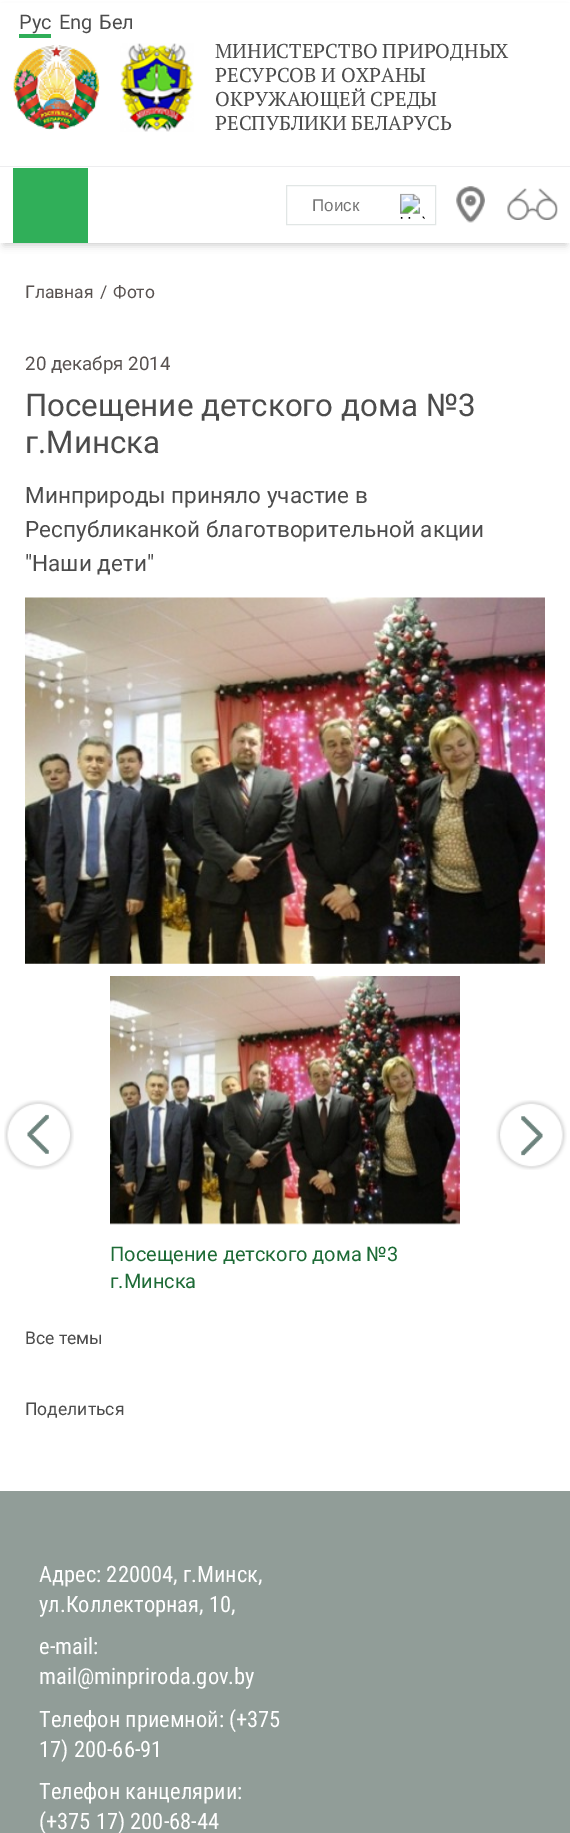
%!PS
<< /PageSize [570 1833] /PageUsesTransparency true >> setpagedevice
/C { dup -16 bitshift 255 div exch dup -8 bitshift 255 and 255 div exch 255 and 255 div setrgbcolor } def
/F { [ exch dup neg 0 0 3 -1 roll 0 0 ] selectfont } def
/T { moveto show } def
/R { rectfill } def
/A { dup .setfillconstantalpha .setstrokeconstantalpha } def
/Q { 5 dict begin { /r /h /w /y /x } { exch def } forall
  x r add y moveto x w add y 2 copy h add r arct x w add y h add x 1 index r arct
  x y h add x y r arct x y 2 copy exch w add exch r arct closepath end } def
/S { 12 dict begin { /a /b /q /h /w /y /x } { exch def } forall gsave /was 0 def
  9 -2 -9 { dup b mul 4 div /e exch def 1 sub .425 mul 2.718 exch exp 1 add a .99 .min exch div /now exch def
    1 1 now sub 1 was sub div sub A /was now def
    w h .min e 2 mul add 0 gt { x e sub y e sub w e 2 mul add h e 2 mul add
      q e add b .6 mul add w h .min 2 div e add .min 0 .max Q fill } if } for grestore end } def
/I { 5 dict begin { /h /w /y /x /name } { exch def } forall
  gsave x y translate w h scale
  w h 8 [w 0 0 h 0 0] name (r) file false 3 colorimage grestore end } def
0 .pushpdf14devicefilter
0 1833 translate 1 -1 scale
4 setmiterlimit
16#FFFFFF C
0 0 570 1833 R
16#000000 C
4 10 562 235 0 4 .2 S
16#FFFFFF C
0 3 570 240 R
16#EDEDEF C
0 166 570 1 R
/Roboto-Regular 20 F
16#4C4C4C C
(Рус) 19 29 T
16#30AE58 C
19 34 32 4 R
16#4C4C4C C
(Eng) 59 29 T
(Бел) 99 29 T
16#E1E6E5 C
286.5 185.5 149 39 rectstroke
/LiberationSans-Regular 17 F
16#757575 C
(Поиск) 312 211 T
(1.rgb) 400 193 25 26 I
(2.rgb) 456 186 29 37 I
(3.rgb) 507 188 51 32 I
(4.rgb) 13 45 87 85 I
(5.rgb) 120 43 74 89 I
/PTSerif-Regular 20 F
16#4C4C4C C
(МИНИСТЕРСТВО ПРИРОДНЫХ) 215 58 T
(РЕСУРСОВ И ОХРАНЫ) 215 82 T
(ОКРУЖАЮЩЕЙ СРЕДЫ) 215 106 T
(РЕСПУБЛИКИ БЕЛАРУСЬ) 215 130 T
16#30AF59 C
13 168 75 75 R
/Roboto-Regular 17.5 F
16#585250 C
(Главная) 25 298 T
(/) 100 298 T
(Фото) 113 298 T
/Roboto-Regular 18.75 F
(20 декабря 2014) 25 370 T
/Roboto-Regular 31.25 F
16#4C4C4C C
(Посещение детского дома №3) 25 416 T
(г.Минска) 25 453 T
/Roboto-Regular 22.5 F
(Минприроды приняло участие в) 25 503 T
(Республиканкой благотворительной акции) 25 537 T
("Наши дети") 25 571 T
(6.rgb) 25 597 520 367 I
(7.rgb) 4 1100 70 70 I
(8.rgb) 496 1100 71 70 I
(9.rgb) 110 976 350 249 I
/Roboto-Regular 20 F
16#1D6B36 C
(Посещение детского дома №3) 110 1261 T
(г.Минска) 110 1288 T
/Roboto-Regular 17.5 F
16#4C4C4C C
(Все темы) 25 1344 T
(Поделиться) 25 1415 T
16#919D98 C
0 1491 570 342 R
/RobotoCondensed-Regular 22.5 F
16#FFFFFF C
(Адрес: 220004, г.Минск,) 39 1582 T
(ул.Коллекторная, 10,) 39 1612 T
(e-mail:) 39 1654 T
(mail@minpriroda.gov.by) 39 1684 T
(Телефон приемной: \(+375) 39 1727 T
(17\) 200-66-91) 39 1757 T
(Телефон канцелярии:) 39 1799 T
(\(+375 17\) 200-68-44) 39 1829 T
.poppdf14devicefilter showpage
